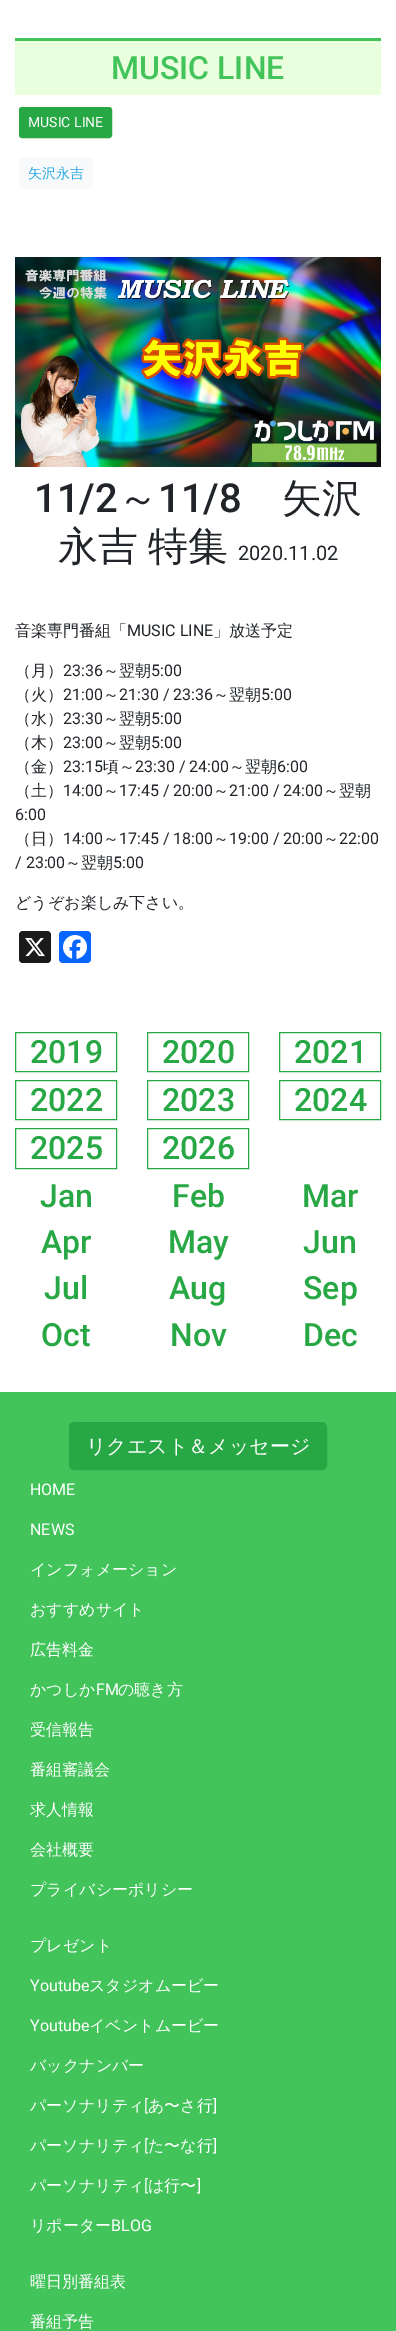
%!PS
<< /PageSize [396 2331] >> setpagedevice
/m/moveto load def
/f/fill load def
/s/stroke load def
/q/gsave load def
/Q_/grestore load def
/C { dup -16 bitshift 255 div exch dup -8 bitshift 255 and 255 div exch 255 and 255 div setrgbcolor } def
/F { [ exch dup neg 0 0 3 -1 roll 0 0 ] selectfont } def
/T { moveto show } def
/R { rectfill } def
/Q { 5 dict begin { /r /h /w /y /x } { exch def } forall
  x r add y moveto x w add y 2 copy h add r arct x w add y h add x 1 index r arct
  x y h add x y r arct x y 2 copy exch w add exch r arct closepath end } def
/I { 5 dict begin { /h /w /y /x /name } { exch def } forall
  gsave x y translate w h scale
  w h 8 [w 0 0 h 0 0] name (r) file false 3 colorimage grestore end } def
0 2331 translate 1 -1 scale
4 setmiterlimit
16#FFFFFF C
0 0 396 2331 R
16#E9FFDE C
15 41 366 54 R
16#43C45B C
15 38 366 3 R
/Roboto-Medium 32 F
(MUSIC LINE) 111 79 T
16#28A745 C
19.5 107.5 92 30 2.5 Q q f Q_
s
/Roboto-Regular 14 F
16#FFFFFF C
(MUSIC LINE) 28 127 T
16#F8F9FA C
19 158 74 31 3 Q f
/WenQuanYiZenHei-Medium 14 F
16#29AAE1 C
(矢沢永吉) 28 178 T
(1.rgb) 15 257 366 210 I
/Roboto-Medium 40 F
16#212529 C
(11/2) 34 512 T
/WenQuanYiZenHei-Medium 40 F
(～) 118 512 T
/Roboto-Medium 40 F
(11/8) 158 512 T
/WenQuanYiZenHei-Medium 40 F
(矢沢) 282 512 T
58 560 m -2 0 32 (永吉 特集) widthshow
/Roboto-Regular 20 F
(2020.11.02) 238 560 T
/WenQuanYiZenHei-Medium 16 F
(音楽専門番組「) 15 636 T
/Roboto-Regular 16 F
(MUSIC LINE) 127 636 T
/WenQuanYiZenHei-Medium 16 F
(」放送予定) 213 636 T
(（月）) 15 676 T
/Roboto-Regular 16 F
(23:36) 63 676 T
/WenQuanYiZenHei-Medium 16 F
(～翌朝) 103 676 T
/Roboto-Regular 16 F
(5:00) 151 676 T
/WenQuanYiZenHei-Medium 16 F
(（火）) 15 700 T
/Roboto-Regular 16 F
(21:00) 63 700 T
/WenQuanYiZenHei-Medium 16 F
(～) 103 700 T
/Roboto-Regular 16 F
(21:30 / 23:36) 119 700 T
/WenQuanYiZenHei-Medium 16 F
(～翌朝) 213 700 T
/Roboto-Regular 16 F
(5:00) 261 700 T
/WenQuanYiZenHei-Medium 16 F
(（水）) 15 724 T
/Roboto-Regular 16 F
(23:30) 63 724 T
/WenQuanYiZenHei-Medium 16 F
(～翌朝) 103 724 T
/Roboto-Regular 16 F
(5:00) 151 724 T
/WenQuanYiZenHei-Medium 16 F
(（木）) 15 748 T
/Roboto-Regular 16 F
(23:00) 63 748 T
/WenQuanYiZenHei-Medium 16 F
(～翌朝) 103 748 T
/Roboto-Regular 16 F
(5:00) 151 748 T
/WenQuanYiZenHei-Medium 16 F
(（金）) 15 772 T
/Roboto-Regular 16 F
(23:15) 63 772 T
/WenQuanYiZenHei-Medium 16 F
(頃～) 103 772 T
/Roboto-Regular 16 F
(23:30 / 24:00) 135 772 T
/WenQuanYiZenHei-Medium 16 F
(～翌朝) 229 772 T
/Roboto-Regular 16 F
(6:00) 277 772 T
/WenQuanYiZenHei-Medium 16 F
(（土）) 15 796 T
/Roboto-Regular 16 F
(14:00) 63 796 T
/WenQuanYiZenHei-Medium 16 F
(～) 103 796 T
/Roboto-Regular 16 F
(17:45 / 20:00) 119 796 T
/WenQuanYiZenHei-Medium 16 F
(～) 213 796 T
/Roboto-Regular 16 F
(21:00 / 24:00) 229 796 T
/WenQuanYiZenHei-Medium 16 F
(～翌朝) 323 796 T
/Roboto-Regular 16 F
(6:00) 15 820 T
/WenQuanYiZenHei-Medium 16 F
(（日）) 15 844 T
/Roboto-Regular 16 F
(14:00) 63 844 T
/WenQuanYiZenHei-Medium 16 F
(～) 103 844 T
/Roboto-Regular 16 F
(17:45 / 18:00) 119 844 T
/WenQuanYiZenHei-Medium 16 F
(～) 213 844 T
/Roboto-Regular 16 F
(19:00 / 20:00) 229 844 T
/WenQuanYiZenHei-Medium 16 F
(～) 323 844 T
/Roboto-Regular 16 F
(22:00) 339 844 T
(/ 23:00) 15 868 T
/WenQuanYiZenHei-Medium 16 F
(～翌朝) 65 868 T
/Roboto-Regular 16 F
(5:00) 113 868 T
/WenQuanYiZenHei-Medium 16 F
(どうぞお楽しみ下さい。) 15 908 T
16#1A1A1A C
19 931 32 32 4 Q f
(2.rgb) 25 938 20 19 I
16#0866FF C
59 931 32 32 4 Q f
(3.rgb) 63 935 24 24 I
16#28A745 C
15.5 1032.5 101 39 rectstroke
/Roboto-Medium 32 F
(2019) 30 1063 T
147.5 1032.5 101 39 rectstroke
(2020) 162 1063 T
279.5 1032.5 101 39 rectstroke
(2021) 294 1063 T
15.5 1080.5 101 39 rectstroke
(2022) 30 1111 T
147.5 1080.5 101 39 rectstroke
(2023) 162 1111 T
279.5 1080.5 101 39 rectstroke
(2024) 294 1111 T
15.5 1128.5 101 40 rectstroke
(2025) 30 1159 T
147.5 1128.5 101 40 rectstroke
(2026) 162 1159 T
(Jan) 40 1207 T
(Feb) 172 1207 T
(Mar) 302 1207 T
(Apr) 41 1253 T
(May) 168 1253 T
(Jun) 303 1253 T
(Jul) 44 1299 T
(Aug) 169 1299 T
(Sep) 303 1299 T
(Oct) 41 1346 T
(Nov) 170 1346 T
(Dec) 303 1346 T
16#43C45B C
0 1392 396 939 R
16#28A745 C
69.5 1422.5 257 47 4.5 Q q f Q_
s
/WenQuanYiZenHei-Medium 20 F
16#FFFFFF C
(リクエスト＆メッセージ) 86 1453 T
/Roboto-Regular 16 F
(HOME) 30 1495 T
(NEWS) 30 1535 T
/WenQuanYiZenHei-Medium 16 F
(インフォメーション) 30 1575 T
(おすすめサイト) 30 1615 T
(広告料金) 30 1655 T
(かつしか) 30 1695 T
/Roboto-Regular 16 F
(FM) 96 1695 T
/WenQuanYiZenHei-Medium 16 F
(の聴き方) 118 1695 T
(受信報告) 30 1735 T
(番組審議会) 30 1775 T
(求人情報) 30 1815 T
(会社概要) 30 1855 T
(プライバシーポリシー) 30 1895 T
(プレゼント) 30 1951 T
/Roboto-Regular 16 F
(Youtube) 30 1991 T
/WenQuanYiZenHei-Medium 16 F
(スタジオムービー) 89 1991 T
/Roboto-Regular 16 F
(Youtube) 30 2031 T
/WenQuanYiZenHei-Medium 16 F
(イベントムービー) 89 2031 T
(バックナンバー) 30 2071 T
(パーソナリティ) 30 2111 T
/Roboto-Regular 16 F
([) 144 2111 T
/WenQuanYiZenHei-Medium 16 F
(あ〜さ行) 148 2111 T
/Roboto-Regular 16 F
(]) 213 2111 T
/WenQuanYiZenHei-Medium 16 F
(パーソナリティ) 30 2151 T
/Roboto-Regular 16 F
([) 144 2151 T
/WenQuanYiZenHei-Medium 16 F
(た〜な行) 148 2151 T
/Roboto-Regular 16 F
(]) 213 2151 T
/WenQuanYiZenHei-Medium 16 F
(パーソナリティ) 30 2191 T
/Roboto-Regular 16 F
([) 144 2191 T
/WenQuanYiZenHei-Medium 16 F
(は行〜) 148 2191 T
/Roboto-Regular 16 F
(]) 197 2191 T
/WenQuanYiZenHei-Medium 16 F
(リポーター) 30 2231 T
/Roboto-Regular 16 F
(BLOG) 111 2231 T
/WenQuanYiZenHei-Medium 16 F
(曜日別番組表) 30 2287 T
(番組予告) 30 2327 T
showpage
